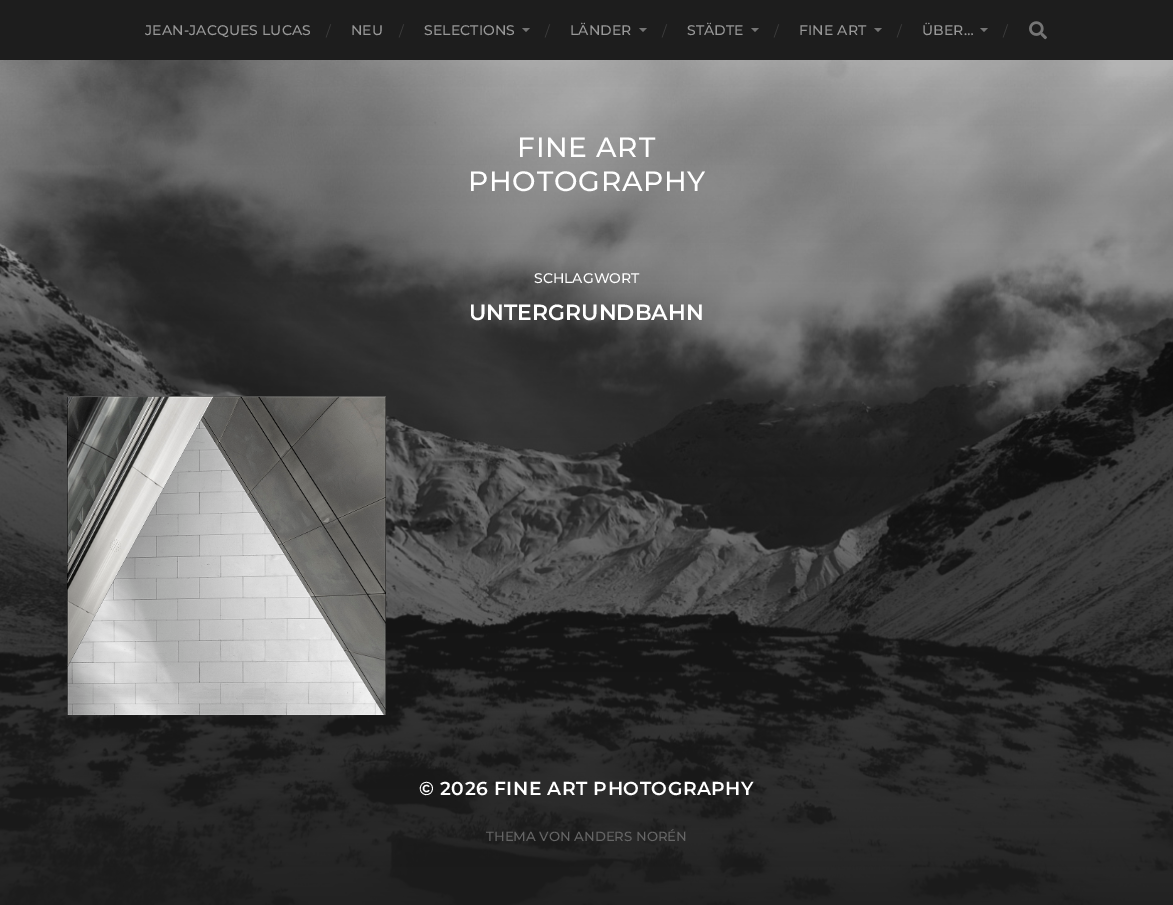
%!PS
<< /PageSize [1173 905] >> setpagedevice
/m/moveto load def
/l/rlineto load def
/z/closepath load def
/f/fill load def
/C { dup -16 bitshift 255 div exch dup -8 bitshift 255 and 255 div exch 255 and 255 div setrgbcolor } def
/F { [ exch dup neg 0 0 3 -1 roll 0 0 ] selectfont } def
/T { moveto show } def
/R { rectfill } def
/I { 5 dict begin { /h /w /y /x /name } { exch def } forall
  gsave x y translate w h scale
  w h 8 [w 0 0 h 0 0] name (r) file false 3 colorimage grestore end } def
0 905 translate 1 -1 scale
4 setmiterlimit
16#1D1D1D C
0 0 1173 905 R
/Montserrat-Thin 14 F
16#999999 C
145 35 m .1 0 (JEAN-JACQUES LUCAS) ashow
/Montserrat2-Thin 14 F
16#3D3D3D C
(/) 326 36 T
/Montserrat-Thin 14 F
16#999999 C
351 35 m .1 0 (NEU) ashow
/Montserrat2-Thin 14 F
16#3D3D3D C
(/) 399 36 T
/Montserrat-Thin 14 F
16#999999 C
424 35 m .1 0 (SELECTIONS) ashow
16#757575 C
522 28 m 8 0 l -4 4 l z f
/Montserrat2-Thin 14 F
16#3D3D3D C
(/) 545 36 T
/Montserrat-Thin 14 F
16#999999 C
570 35 m .1 0 (LÄNDER) ashow
16#757575 C
639 28 m 8 0 l -4 4 l z f
/Montserrat2-Thin 14 F
16#3D3D3D C
(/) 662 36 T
/Montserrat-Thin 14 F
16#999999 C
687 35 m .1 0 (STÄDTE) ashow
16#757575 C
751 28 m 8 0 l -4 4 l z f
/Montserrat2-Thin 14 F
16#3D3D3D C
(/) 774 36 T
/Montserrat-Thin 14 F
16#999999 C
799 35 m .1 0 (FINE ART) ashow
16#757575 C
874 28 m 8 0 l -4 4 l z f
/Montserrat2-Thin 14 F
16#3D3D3D C
(/) 897 36 T
/Montserrat-Thin 14 F
16#999999 C
922 35 m .1 0 (ÜBER…) ashow
16#757575 C
980 28 m 8 0 l -4 4 l z f
/Montserrat2-Thin 14 F
16#3D3D3D C
(/) 1003 36 T
(1.rgb) 1029 21 18 19 I
(2.rgb) 0 60 1173 845 I
/Montserrat-Thin 28 F
16#FFFFFF C
517 157 m .75 0 (FINE ART) ashow
468 191 m .75 0 (PHOTOGRAPHY) ashow
/Montserrat-Thin 14 F
(SCHLAGWORT) 534 283 T
/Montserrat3-Thin 22 F
(UNTERGRUNDBAHN) 469 320 T
(3.rgb) 67 396 319 319 I
/Montserrat3-Thin 18.75 F
419 795 m .5 0 (© 2026 FINE ART PHOTOGRAPHY) ashow
/Montserrat-Thin 13.25 F
16#666666 C
(THEMA VON ANDERS NORÉN) 486 841 T
showpage
